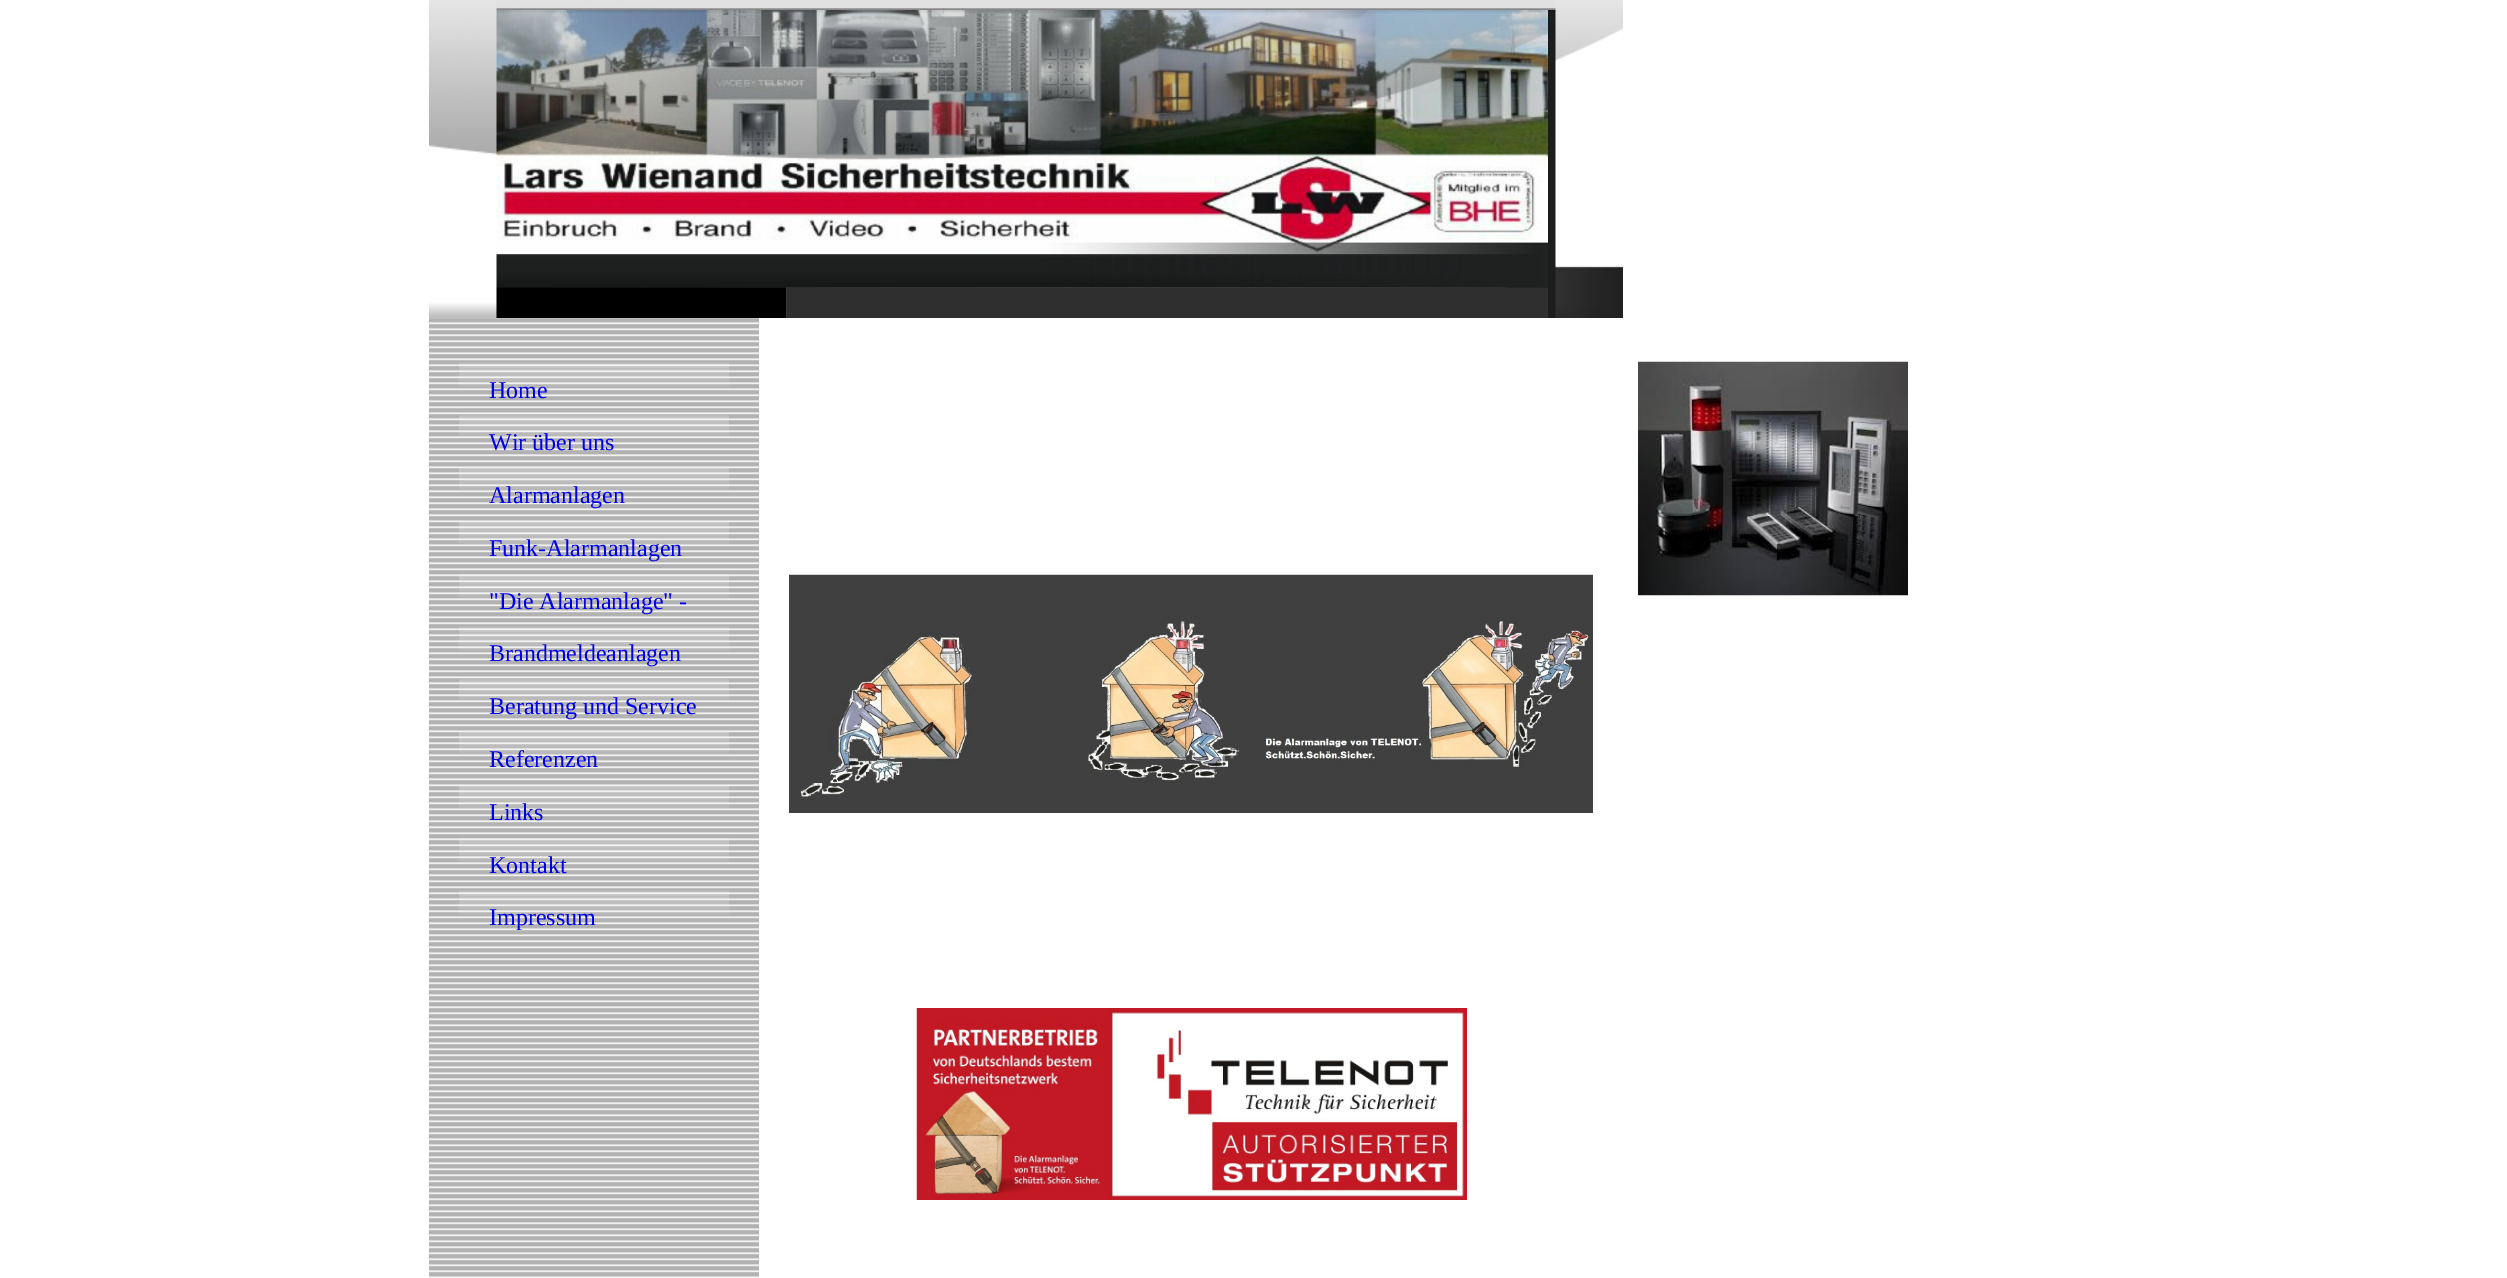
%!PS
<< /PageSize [2507 1278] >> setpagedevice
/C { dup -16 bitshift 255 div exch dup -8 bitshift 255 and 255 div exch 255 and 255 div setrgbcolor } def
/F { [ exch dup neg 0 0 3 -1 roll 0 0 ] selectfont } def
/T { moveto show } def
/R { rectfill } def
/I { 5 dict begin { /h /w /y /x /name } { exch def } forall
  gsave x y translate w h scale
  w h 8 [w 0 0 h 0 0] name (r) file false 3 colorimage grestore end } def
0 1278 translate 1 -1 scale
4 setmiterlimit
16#FFFFFF C
0 0 2507 1278 R
(1.rgb) 429 0 1194 318 I
(2.rgb) 496 0 1060 318 I
(3.rgb) 429 318 330 960 I
(4.rgb) 459 363 270 24 I
/LiberationSerif-Regular 24 F
16#0000EE C
(Home) 489 398 T
(5.rgb) 459 415 270 21 I
(Wir über uns) 489 450 T
(6.rgb) 459 468 270 22 I
(Alarmanlagen) 489 503 T
(6.rgb) 459 522 270 22 I
(Funk-Alarmanlagen) 489 556 T
(7.rgb) 459 574 270 24 I
("Die Alarmanlage" -) 489 609 T
(4.rgb) 459 627 270 24 I
(Brandmeldeanlagen) 489 661 T
(5.rgb) 459 679 270 21 I
(Beratung und Service) 489 714 T
(6.rgb) 459 732 270 22 I
(Referenzen) 489 767 T
(8.rgb) 459 786 270 22 I
(Links) 489 820 T
(7.rgb) 459 838 270 24 I
(Kontakt) 489 873 T
(4.rgb) 459 891 270 24 I
(Impressum) 489 925 T
(9.rgb) 789 574 804 239 I
(10.rgb) 916 1008 551 192 I
(11.rgb) 1638 361 270 235 I
showpage
